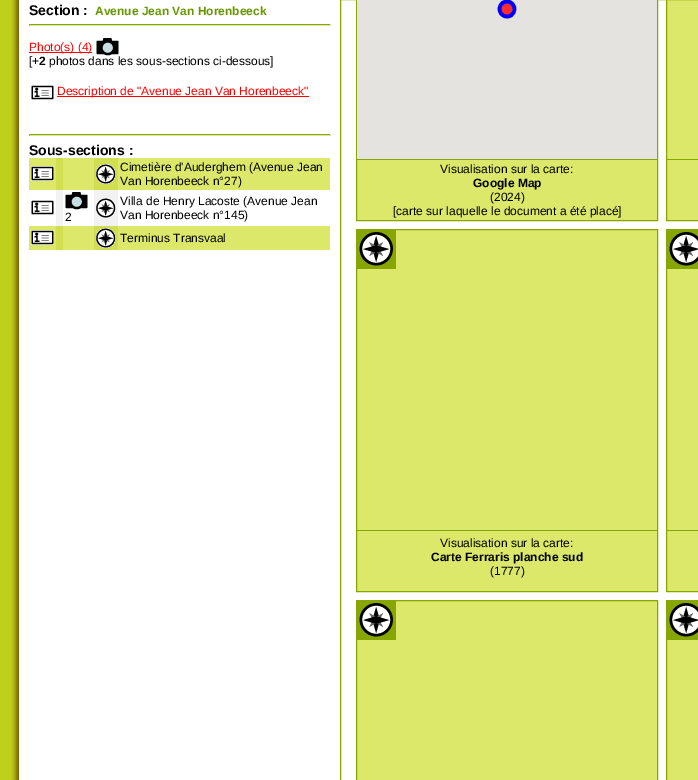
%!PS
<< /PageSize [698 780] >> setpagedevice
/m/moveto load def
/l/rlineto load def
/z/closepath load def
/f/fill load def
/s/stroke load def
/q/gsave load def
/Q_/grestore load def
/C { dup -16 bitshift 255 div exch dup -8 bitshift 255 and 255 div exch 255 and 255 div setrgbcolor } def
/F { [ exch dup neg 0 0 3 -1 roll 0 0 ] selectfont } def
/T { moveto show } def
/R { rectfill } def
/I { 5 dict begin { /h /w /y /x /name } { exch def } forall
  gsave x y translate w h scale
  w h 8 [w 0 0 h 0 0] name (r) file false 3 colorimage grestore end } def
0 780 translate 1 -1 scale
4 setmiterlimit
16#BED01A C
0 0 698 780 R
(1.rgb) 11 0 687 780 I
/LiberationSans-Bold 14 F
16#000000 C
(Section :) 29 15 T
/LiberationSans-Bold 12 F
16#669900 C
(Avenue Jean Van Horenbeeck) 95 15 T
16#87A602 C
29 24 302 1 R
16#EEEEEE C
330 24 1 2 R
16#D9E997 C
29 25 302 1 R
16#9F9F9F C
29 24 1 2 R
16#FF0000 C
29 52 63 1 R
/LiberationSans-Regular 12 F
(Photo\(s\) \(4\)) 29 51 T
(2.rgb) 96 38 23 18 I
16#000000 C
([+) 29 65 T
/LiberationSans-Bold 12 F
(2) 39 65 T
/LiberationSans-Regular 12 F
(photos dans les sous-sections ci-dessous]) 49 65 T
(3.rgb) 31 85 23 15 I
16#FF0000 C
57 96 252 1 R
(Description de "Avenue Jean Van Horenbeeck") 57 95 T
16#87A602 C
29 134 302 1 R
16#EEEEEE C
330 134 1 2 R
16#D9E997 C
29 135 302 1 R
16#9F9F9F C
29 134 1 2 R
/LiberationSans-Bold 14 F
16#000000 C
(Sous-sections :) 29 155 T
16#DCE86A C
29 158 27 32 R
(4.rgb) 31 166 23 15 I
16#D0DE4F C
56 158 7 32 R
16#DCE86A C
63 158 31 32 R
16#D0DE4F C
94 158 24 32 R
(5.rgb) 96 164 20 20 I
16#DCE86A C
118 158 212 32 R
/LiberationSans-Regular 12 F
16#000000 C
(Cimetière d'Auderghem \(Avenue Jean) 120 171 T
(Van Horenbeeck n°27\)) 120 185 T
(3.rgb) 31 200 23 15 I
16#F2F2F2 C
56 190 7 36 R
94 190 24 36 R
(6.rgb) 96 198 20 20 I
16#000000 C
(Villa de Henry Lacoste \(Avenue Jean) 120 205 T
(Van Horenbeeck n°145\)) 120 219 T
(2.rgb) 65 192 23 18 I
(2) 65 221 T
16#DCE86A C
29 226 27 24 R
(4.rgb) 31 230 23 15 I
16#D0DE4F C
56 226 7 24 R
16#DCE86A C
63 226 31 24 R
16#D0DE4F C
94 226 24 24 R
(5.rgb) 96 228 20 20 I
16#DCE86A C
118 226 212 24 R
16#000000 C
(Terminus Transvaal) 120 242 T
16#87A602 C
340.5 -.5 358 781 rectstroke
16#DCE86A C
357 160 300 60 R
16#87A602 C
356.5 -.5 301 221 rectstroke
16#E5E3DF C
357 0 300 159 R
(7.rgb) 497 0 20 19 I
16#87A602 C
357 159 300 1 R
16#000000 C
(Visualisation sur la carte:) 440 173 T
/LiberationSans-Bold 12 F
(Google Map) 473 187 T
/LiberationSans-Regular 12 F
(\(2024\)) 490 201 T
([carte sur laquelle le document a été placé]) 393 215 T
16#DCE86A C
666.5 -.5 m 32 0 l 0 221 l -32 0 l z q f Q_
16#87A602 C
s
667 159 31 1 R
16#DCE86A C
356.5 229.5 m 301 0 l 0 362 l -301 0 l z q f Q_
16#87A602 C
s
(8.rgb) 357 230 39 39 I
357 530 300 1 R
16#000000 C
(Visualisation sur la carte:) 440 547 T
/LiberationSans-Bold 12 F
(Carte Ferraris planche sud) 431 561 T
/LiberationSans-Regular 12 F
(\(1777\)) 490 575 T
16#DCE86A C
667 269 31 322 R
16#87A602 C
666.5 229.5 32 362 rectstroke
(9.rgb) 667 230 31 39 I
667 530 31 1 R
16#DCE86A C
356.5 600.5 m 301 0 l 0 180 l -301 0 l z q f Q_
16#87A602 C
s
(8.rgb) 357 601 39 39 I
16#DCE86A C
667 640 31 140 R
16#87A602 C
666.5 600.5 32 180 rectstroke
(9.rgb) 667 601 31 39 I
showpage
